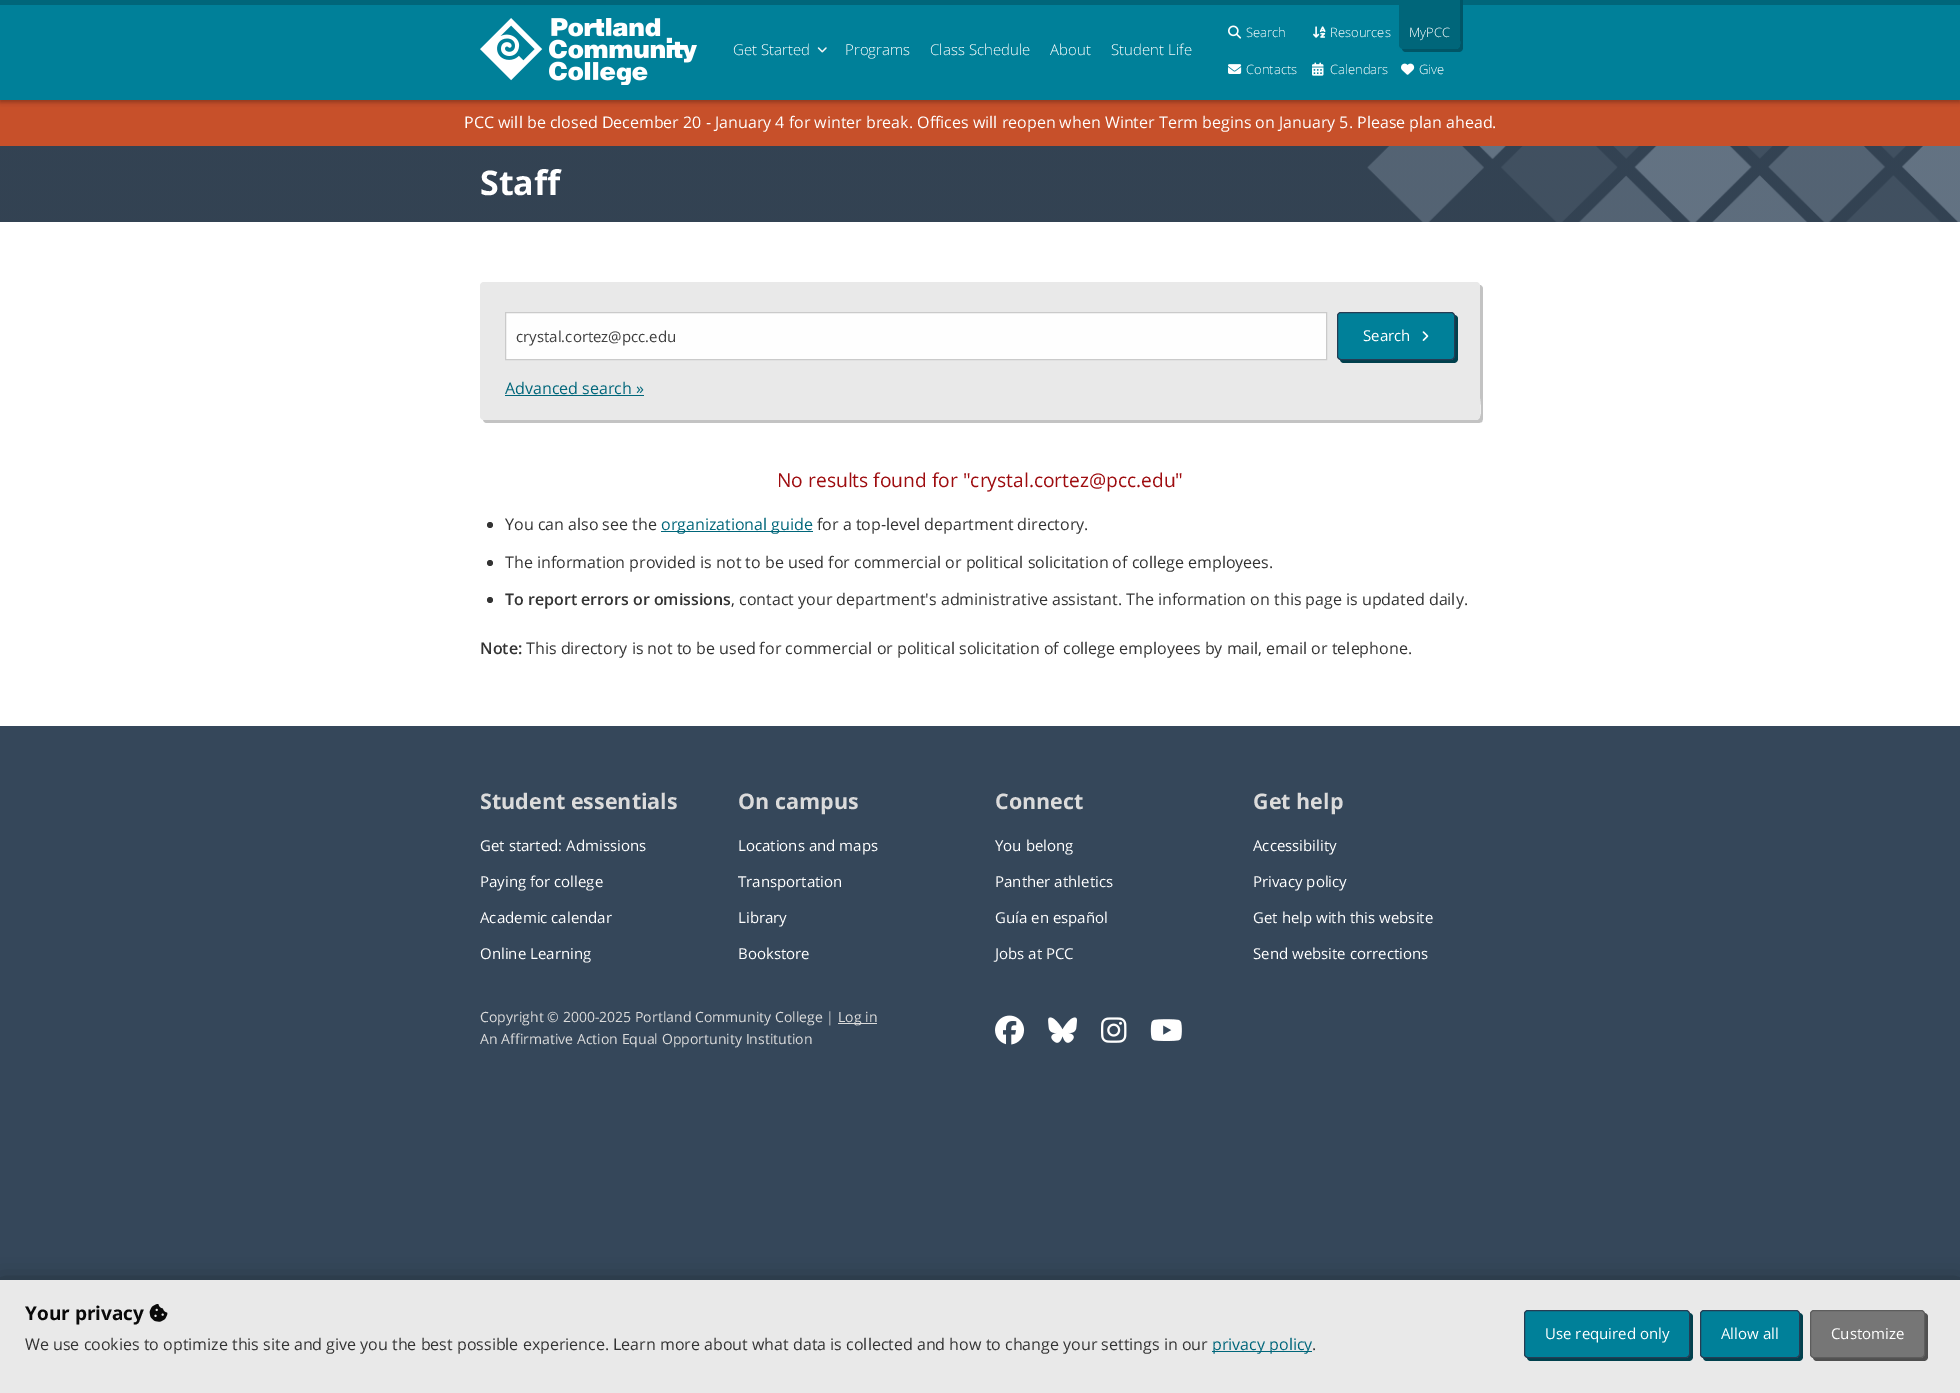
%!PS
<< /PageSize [1960 1393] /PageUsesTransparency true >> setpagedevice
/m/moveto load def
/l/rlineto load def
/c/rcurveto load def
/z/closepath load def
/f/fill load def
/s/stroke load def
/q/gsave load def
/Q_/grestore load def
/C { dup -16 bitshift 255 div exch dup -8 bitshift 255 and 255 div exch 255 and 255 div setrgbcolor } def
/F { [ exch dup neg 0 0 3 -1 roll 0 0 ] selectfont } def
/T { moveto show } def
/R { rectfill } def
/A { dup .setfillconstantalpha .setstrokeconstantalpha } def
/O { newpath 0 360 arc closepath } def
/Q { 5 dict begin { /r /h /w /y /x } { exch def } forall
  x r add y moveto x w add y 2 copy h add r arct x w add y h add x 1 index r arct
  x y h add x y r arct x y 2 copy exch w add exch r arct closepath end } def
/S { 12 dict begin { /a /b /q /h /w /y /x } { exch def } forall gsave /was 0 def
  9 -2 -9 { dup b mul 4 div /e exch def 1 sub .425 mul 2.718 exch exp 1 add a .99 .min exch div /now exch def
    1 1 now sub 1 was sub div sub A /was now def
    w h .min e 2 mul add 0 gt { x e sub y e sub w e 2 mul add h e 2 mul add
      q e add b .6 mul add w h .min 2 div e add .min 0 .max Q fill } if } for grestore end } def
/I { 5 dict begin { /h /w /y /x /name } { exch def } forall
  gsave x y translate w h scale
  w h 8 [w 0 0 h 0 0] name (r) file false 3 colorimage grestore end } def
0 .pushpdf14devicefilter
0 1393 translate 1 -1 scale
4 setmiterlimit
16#35475A C
0 0 1960 1393 R
16#C7502A C
0 100 1960 46 R
16#000000 C
0 2 1960 100 0 2.5 .3 S
16#008099 C
0 5 1960 95 R
16#00667A C
0 0 1960 5 R
(1.rgb) 480 18 217 67 I
/OpenSans-Light 15 F
16#FFFFFF C
(Get Started) 733 55 T
(2.rgb) 817 47 10 6 I
(Programs) 845 55 T
(Class Schedule) 930 55 T
(About) 1050 55 T
(Student Life) 1111 55 T
(3.rgb) 1228 25 14 14 I
/OpenSans-Light 13 F
(Search) 1246 37 T
(4.rgb) 1313 26 13 12 I
(Resources) 1330 37 T
16#005566 C
1402 49 m 1 2 2 3 4 3 c 53 0 l 2 0 4 -2 4 -4 c 0 -48 l -3 0 l 0 38 l 0 2 2 11 -4 11 c z f
16#00667A C
1399 -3 m 61 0 l 0 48 l 0 2 -2 4 -4 4 c -53 0 l -2 0 -4 -2 -4 -4 c z f
16#FFFFFF C
(MyPCC) 1409 37 T
(5.rgb) 1228 64 14 10 I
(Contacts) 1246 74 T
(6.rgb) 1312 62 12 14 I
(Calendars) 1330 74 T
(7.rgb) 1401 63 14 12 I
(Give) 1419 74 T
/OpenSans-Regular 16 F
(PCC will be closed December 20 - January 4 for winter break. Offices will reopen when Winter Term begins on January 5. Please plan ahead.) 464 128 T
0 222 1960 504 R
(8.rgb) 0 146 1960 76 I
/OpenSans-Bold 34 F
(Staff) 480 195 T
16#C3C3C3 C
483 420 m 1 2 2 3 4 3 c 992 0 l 3 -1 l 1 -3 l 0 -131 l -1 -2 -2 -3 -3 -3 c 0 109 l 0 8 4 26 -4 26 c z f
16#E9E9E9 C
480 282 1000 138 4 Q f
16#FEFEFE C
505.5 312.5 m 821 0 l 0 47 l -821 0 l z q f Q_
16#CACACA C
s
/OpenSans-Regular 15 F
16#404040 C
(crystal.cortez@pcc.edu) 516 342 T
16#00404D C
1340 360 m 1 2 2 3 4 3 c 110 0 l 2 0 4 -2 4 -4 c 0 -40 l 0 -2 -1 -3 -3 -4 c 0 34 l 0 3 1 11 -4 11 c z f
16#008099 C
1337.5 312.5 117 47 3.5 Q q f Q_
16#263C53 C
s
16#FFFFFF C
(Search) 1363 341 T
(9.rgb) 1422 331 7 10 I
/OpenSans-Regular 16 F
16#00667A C
(Advanced search ») 505 394 T
505 395 139 1 R
/OpenSans-Regular 19.2 F
16#9E0C0F C
(No results found for "crystal.cortez@pcc.edu") 777 487 T
16#333333 C
490 525 3 O f
/OpenSans-Regular 16 F
(You can also see the) 505 530 T
16#00667A C
661 531 152 1 R
(organizational guide) 661 530 T
16#333333 C
(for a top-level department directory.) 817 530 T
490 563 3 O f
(The information provided is not to be used for commercial or political solicitation of college employees.) 505 568 T
490 600 3 O f
/OpenSans-SemiBold 16 F
(To report errors or omissions) 505 605 T
/OpenSans-Regular 16 F
(, contact your department's administrative assistant. The information on this page is updated daily.) 731 605 T
/OpenSans-SemiBold 16 F
(Note:) 480 654 T
/OpenSans-Regular 16 F
(This directory is not to be used for commercial or political solicitation of college employees by mail, email or telephone.) 526 654 T
/OpenSans-Bold 21.5 F
16#DBDBDB C
(Student essentials) 480 809 T
/OpenSans-Regular 15 F
16#FFFFFF C
(Get started: Admissions) 480 851 T
(Paying for college) 480 887 T
(Academic calendar) 480 923 T
(Online Learning) 480 959 T
/OpenSans-Bold 21.5 F
16#DBDBDB C
(On campus) 738 809 T
/OpenSans-Regular 15 F
16#FFFFFF C
(Locations and maps) 738 851 T
(Transportation) 738 887 T
(Library) 738 923 T
(Bookstore) 738 959 T
/OpenSans-Bold 21.5 F
16#DBDBDB C
(Connect) 995 809 T
/OpenSans-Regular 15 F
16#FFFFFF C
(You belong) 995 851 T
(Panther athletics) 995 887 T
(Guía en español) 995 923 T
(Jobs at PCC) 995 959 T
/OpenSans-Bold 21.5 F
16#DBDBDB C
(Get help) 1253 809 T
/OpenSans-Regular 15 F
16#FFFFFF C
(Accessibility) 1253 851 T
(Privacy policy) 1253 887 T
(Get help with this website) 1253 923 T
(Send website corrections) 1253 959 T
/OpenSans-Regular 14.05 F
16#DBDBDB C
(Copyright © 2000-2025 Portland Community College |) 480 1022 T
838 1023 39 1 R
(Log in) 838 1022 T
(An Affirmative Action Equal Opportunity Institution) 480 1044 T
(10.rgb) 995 1015 30 30 I
(11.rgb) 1048 1017 29 26 I
(12.rgb) 1101 1017 26 26 I
(13.rgb) 1150 1019 32 22 I
16#000000 C
0 1285 1960 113 0 12.5 .5 S
16#E9E9E9 C
0 1280 1960 113 R
/OpenSans-Bold 19 F
16#0A0A0A C
(Your privacy) 25 1320 T
(14.rgb) 149 1304 19 18 I
/OpenSans-Regular 16 F
16#333333 C
(We use cookies to optimize this site and give you the best possible experience. Learn more about what data is collected and how to change your settings in our) 25 1350 T
16#00667A C
1212 1351 100 1 R
(privacy policy) 1212 1350 T
16#333333 C
(.) 1312 1350 T
16#00404D C
1527 1358 m 1 2 2 3 4 3 c 158 0 l 2 0 4 -2 4 -4 c 0 -40 l 0 -2 -1 -3 -3 -4 c 0 34 l 0 3 1 11 -4 11 c z f
16#008099 C
1524.5 1310.5 165 47 3.5 Q q f Q_
16#263C53 C
s
/OpenSans-Regular 15 F
16#FFFFFF C
(Use required only) 1545 1339 T
16#00404D C
1703 1358 m 1 2 2 3 4 3 c 92 0 l 2 0 4 -2 4 -4 c 0 -40 l 0 -2 -1 -3 -3 -4 c 0 34 l 0 3 1 11 -4 11 c z f
16#008099 C
1700.5 1310.5 99 47 3.5 Q q f Q_
16#263C53 C
s
16#FFFFFF C
(Allow all) 1721 1339 T
16#505050 C
1813 1358 m 1 2 2 3 4 3 c 107 0 l 2 0 4 -2 4 -4 c 0 -40 l 0 -2 -1 -3 -3 -4 c 0 34 l 0 3 1 11 -4 11 c z f
16#767676 C
1810.5 1310.5 114 47 3.5 Q q f Q_
16#5D5D5D C
s
16#FFFFFF C
(Customize) 1831 1339 T
.poppdf14devicefilter showpage
